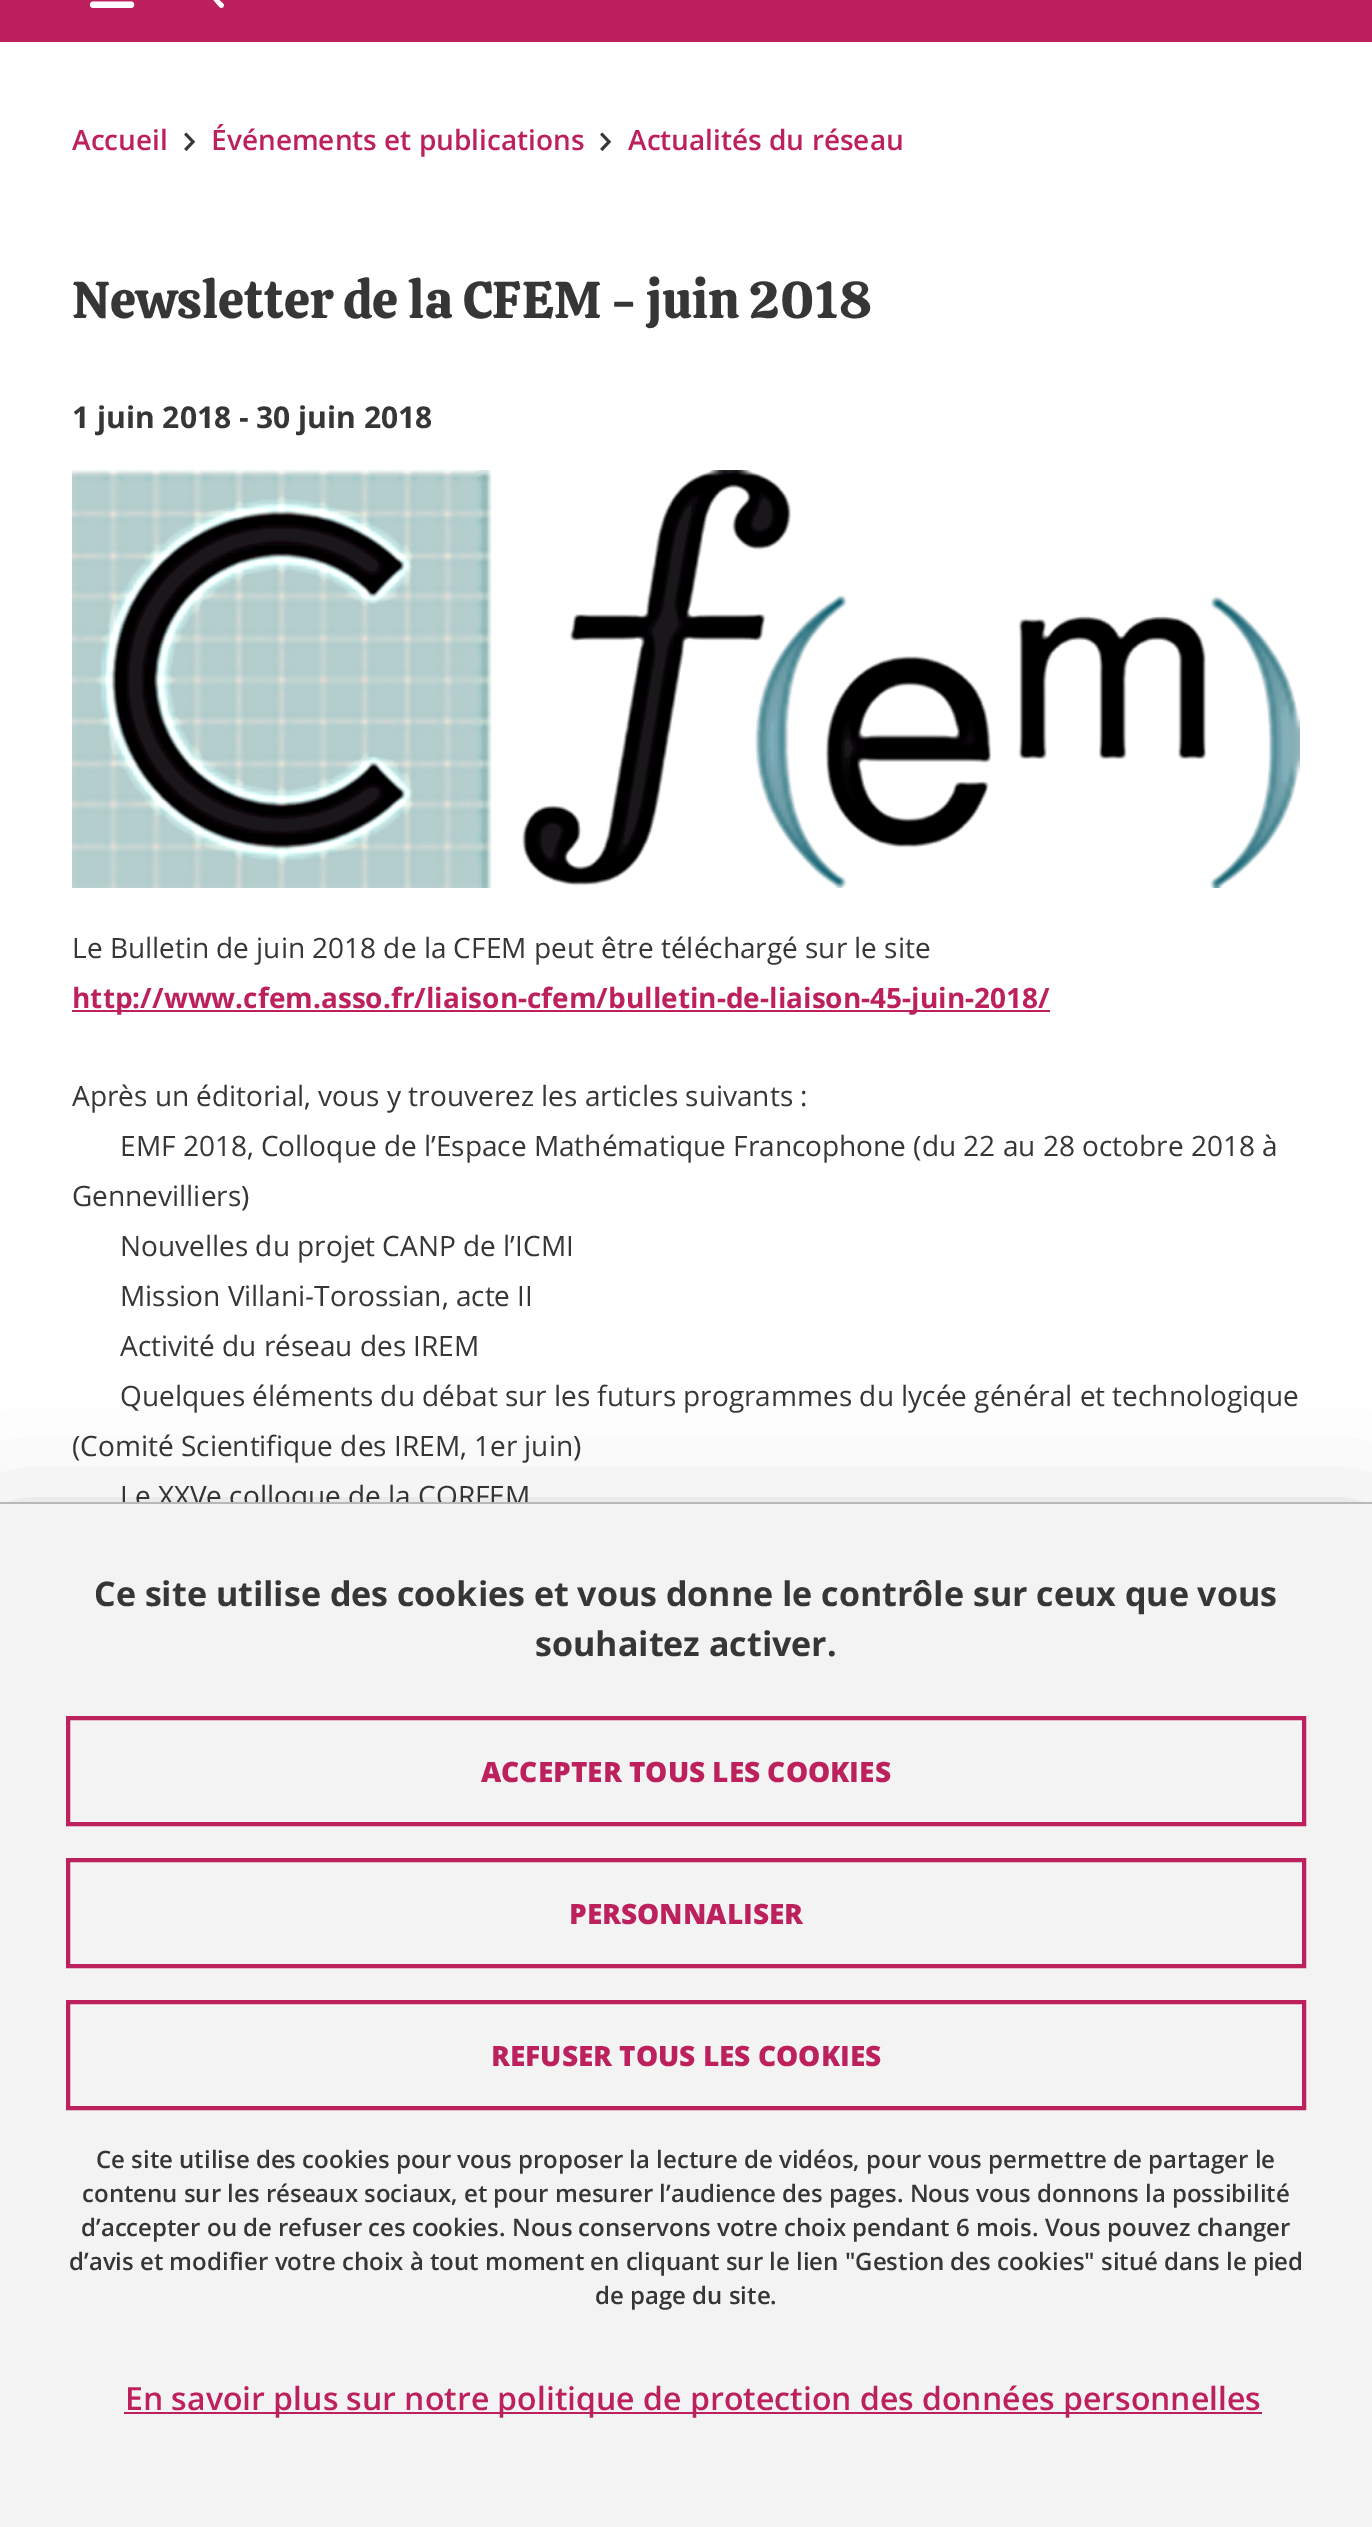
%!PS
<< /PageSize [1372 2527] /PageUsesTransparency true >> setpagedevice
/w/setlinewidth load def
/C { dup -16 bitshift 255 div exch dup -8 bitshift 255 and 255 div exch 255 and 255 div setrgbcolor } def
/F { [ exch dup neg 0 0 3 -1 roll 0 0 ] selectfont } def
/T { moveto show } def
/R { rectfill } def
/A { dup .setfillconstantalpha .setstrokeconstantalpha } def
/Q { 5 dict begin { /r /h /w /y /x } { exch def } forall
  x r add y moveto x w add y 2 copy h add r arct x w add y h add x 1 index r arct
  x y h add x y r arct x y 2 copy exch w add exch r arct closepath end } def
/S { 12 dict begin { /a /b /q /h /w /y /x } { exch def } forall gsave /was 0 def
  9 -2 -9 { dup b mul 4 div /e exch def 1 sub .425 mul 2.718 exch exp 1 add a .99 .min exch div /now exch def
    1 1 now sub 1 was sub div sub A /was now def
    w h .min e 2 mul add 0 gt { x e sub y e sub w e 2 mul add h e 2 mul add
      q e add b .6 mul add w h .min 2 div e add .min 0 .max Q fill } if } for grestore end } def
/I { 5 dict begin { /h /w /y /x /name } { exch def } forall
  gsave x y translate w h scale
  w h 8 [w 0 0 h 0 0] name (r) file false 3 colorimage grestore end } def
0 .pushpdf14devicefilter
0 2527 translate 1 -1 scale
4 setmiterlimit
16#FFFFFF C
0 0 1372 2527 R
16#BC205D C
0 0 1372 42 R
(1.rgb) 89 1 46 7 I
(2.rgb) 213 0 11 8 I
/OpenSans-SemiBold 28 F
(Accueil) 72 150 T
(3.rgb) 184 132 12 19 I
(Événements et publications) 211 150 T
(3.rgb) 600 132 12 19 I
(Actualités du réseau) 628 150 T
/Calistoga-Regular 52 F
16#363636 C
(Newsletter de la CFEM - juin 2018) 72 318 T
/OpenSans-Bold 30 F
(1 juin 2018 - 30 juin 2018) 72 428 T
(4.rgb) 72 470 1228 418 I
/OpenSans-Regular 28 F
(Le Bulletin de juin 2018 de la CFEM peut être téléchargé sur le site) 72 958 T
16#BC205D C
72 1010 978 2 R
/OpenSans-Bold 28 F
(http://www.cfem.asso.fr/liaison-cfem/bulletin-de-liaison-45-juin-2018/) 72 1008 T
/OpenSans-Regular 28 F
16#363636 C
(Après un éditorial, vous y trouverez les articles suivants :) 72 1106 T
(EMF 2018, Colloque de l’Espace Mathématique Francophone \(du 22 au 28 octobre 2018 à) 120 1156 T
(Gennevilliers\)) 72 1206 T
(Nouvelles du projet CANP de l’ICMI) 120 1256 T
(Mission Villani-Torossian, acte II) 120 1306 T
(Activité du réseau des IREM) 120 1356 T
(Quelques éléments du débat sur les futurs programmes du lycée général et technologique) 120 1406 T
(\(Comité Scientifique des IREM, 1er juin\)) 72 1456 T
(Le XXVe colloque de la CORFEM) 120 1506 T
16#000000 C
0 1542 1372 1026 0 60 .25 S
16#F3F3F3 C
0 1504 1372 1023 R
16#B8B8B8 C
0 1502 1372 2 R
/OpenSans-Bold 34 F
16#363636 C
(Ce site utilise des cookies et vous donne le contrôle sur ceux que vous) 94 1606 T
(souhaitez activer.) 535 1656 T
16#BC205D C
4 w
68 1718 1236 106 rectstroke
/OpenSans-ExtraBold 28 F
(ACCEPTER TOUS LES COOKIES) 481 1782 T
68 1860 1236 106 rectstroke
(PERSONNALISER) 569 1924 T
68 2002 1236 106 rectstroke
(REFUSER TOUS LES COOKIES) 491 2066 T
/OpenSans-SemiBold 24 F
16#363636 C
(Ce site utilise des cookies pour vous proposer la lecture de vidéos, pour vous permettre de partager le) 96 2168 T
(contenu sur les réseaux sociaux, et pour mesurer l’audience des pages. Nous vous donnons la possibilité) 82 2202 T
(d’accepter ou de refuser ces cookies. Nous conservons votre choix pendant 6 mois. Vous pouvez changer) 81 2236 T
(d’avis et modifier votre choix à tout moment en cliquant sur le lien "Gestion des cookies" situé dans le pied) 69 2270 T
(de page du site.) 595 2304 T
16#BC205D C
124 2412 1138 2 R
/OpenSans-SemiBold 32 F
(En savoir plus sur notre politique de protection des données personnelles) 125 2410 T
.poppdf14devicefilter showpage
